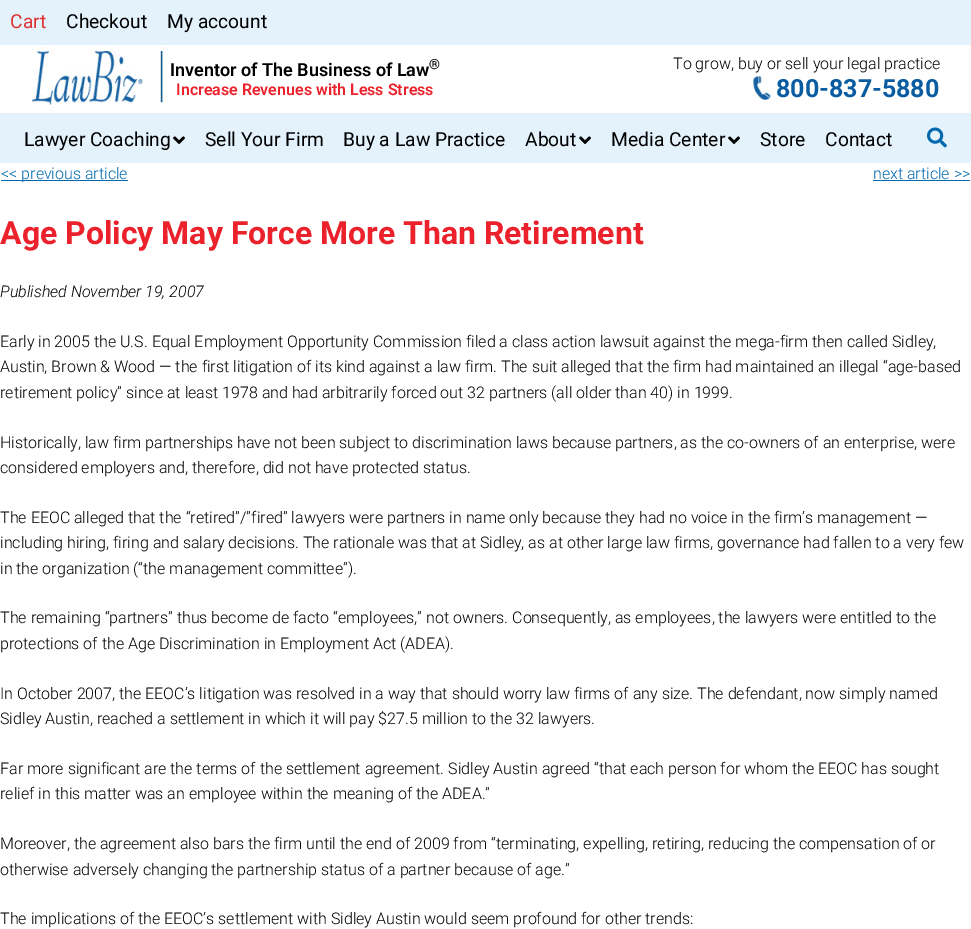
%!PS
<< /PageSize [971 929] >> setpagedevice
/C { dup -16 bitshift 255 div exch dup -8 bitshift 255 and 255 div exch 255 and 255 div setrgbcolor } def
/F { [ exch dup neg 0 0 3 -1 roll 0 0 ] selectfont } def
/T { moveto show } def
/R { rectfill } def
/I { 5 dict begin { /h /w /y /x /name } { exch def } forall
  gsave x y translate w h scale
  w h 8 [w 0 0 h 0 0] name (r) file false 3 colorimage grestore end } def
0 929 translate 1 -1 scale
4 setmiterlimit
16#FFFFFF C
0 0 971 929 R
16#E4F2FC C
0 0 971 45 R
/Roboto-Regular 19.25 F
16#DD3333 C
(Cart) 10 28 T
16#000000 C
(Checkout) 66 28 T
(My account) 167 28 T
(1.rgb) 32 47 136 64 I
/Roboto-SemiBold 18 F
(Inventor of The Business of Law) 170 76 T
/Roboto-SemiBold 14 F
(®) 429 69 T
/Roboto-SemiBold 16 F
16#EB212C C
(Increase Revenues with Less Stress) 176 95 T
/Roboto-Light 16 F
16#000000 C
(To grow, buy or sell your legal practice) 673 69 T
(2.rgb) 751 76 21 24 I
/Roboto-Bold 25 F
16#095CA2 C
(800-837-5880) 776 97 T
16#E4F2FC C
0 113 971 50 R
/Roboto-Regular 19.25 F
16#000000 C
(Lawyer Coaching) 24 146 T
(3.rgb) 173 136 12 8 I
(Sell Your Firm) 205 146 T
(Buy a Law Practice) 343 146 T
(About) 525 146 T
(3.rgb) 579 136 12 8 I
(Media Center) 611 146 T
(3.rgb) 728 136 12 8 I
(Store) 760 146 T
(Contact) 825 146 T
(4.rgb) 927 127 20 21 I
16#0169AD C
1 180 127 1 R
/Roboto-Light 16 F
(<< previous article) 1 179 T
(next article >>) 873 179 T
873 180 97 1 R
/Roboto-Bold 32 F
16#EB212C C
(Age Policy May Force More Than Retirement) 0 244 T
/Roboto-LightItalic 16 F
16#000000 C
(Published November 19, 2007) 0 297 T
/Roboto-Light 16 F
(Early in 2005 the U.S. Equal Employment Opportunity Commission filed a class action lawsuit against the mega-firm then called Sidley,) 0 347 T
(Austin, Brown & Wood — the first litigation of its kind against a law firm. The suit alleged that the firm had maintained an illegal “age-based) 0 372 T
(retirement policy” since at least 1978 and had arbitrarily forced out 32 partners \(all older than 40\) in 1999.) 0 398 T
(Historically, law firm partnerships have not been subject to discrimination laws because partners, as the co-owners of an enterprise, were) 0 448 T
(considered employers and, therefore, did not have protected status.) 0 473 T
(The EEOC alleged that the “retired”/”fired” lawyers were partners in name only because they had no voice in the firm’s management —) 0 523 T
(including hiring, firing and salary decisions. The rationale was that at Sidley, as at other large law firms, governance had fallen to a very few) 0 548 T
(in the organization \(“the management committee”\).) 0 574 T
(The remaining “partners” thus become de facto “employees,” not owners. Consequently, as employees, the lawyers were entitled to the) 0 623 T
(protections of the Age Discrimination in Employment Act \(ADEA\).) 0 649 T
(In October 2007, the EEOC’s litigation was resolved in a way that should worry law firms of any size. The defendant, now simply named) 0 699 T
(Sidley Austin, reached a settlement in which it will pay $27.5 million to the 32 lawyers.) 0 724 T
(Far more significant are the terms of the settlement agreement. Sidley Austin agreed “that each person for whom the EEOC has sought) 0 774 T
(relief in this matter was an employee within the meaning of the ADEA.”) 0 799 T
(Moreover, the agreement also bars the firm until the end of 2009 from “terminating, expelling, retiring, reducing the compensation of or) 0 849 T
(otherwise adversely changing the partnership status of a partner because of age.”) 0 875 T
(The implications of the EEOC’s settlement with Sidley Austin would seem profound for other trends:) 0 924 T
showpage
